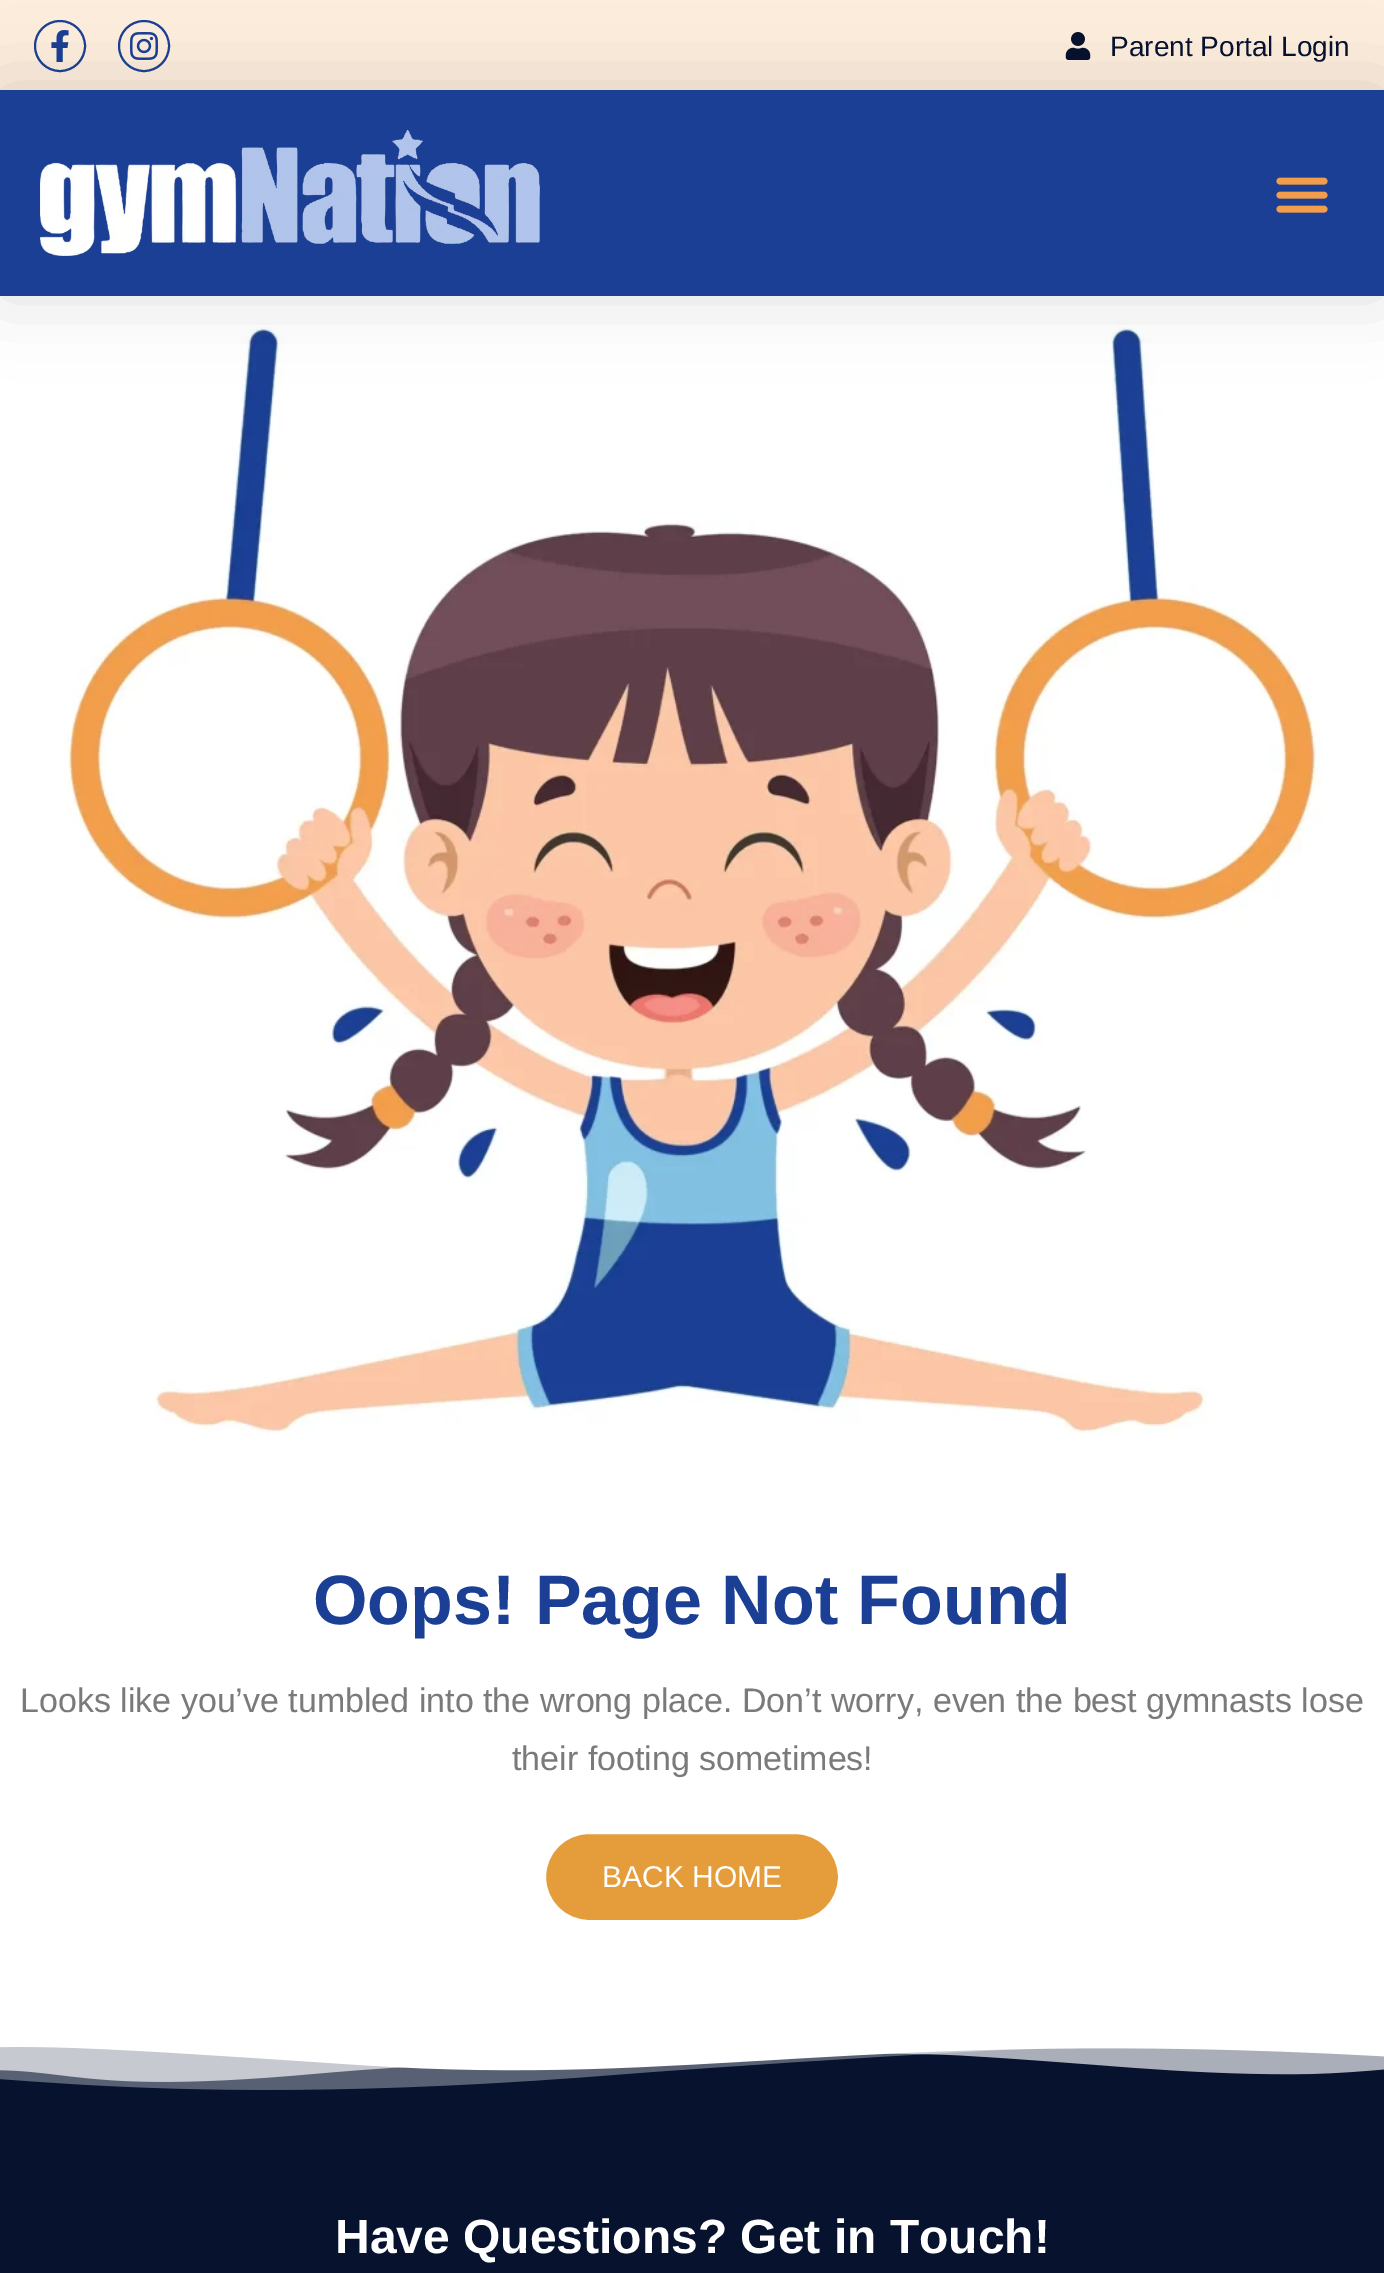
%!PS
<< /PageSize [1384 2273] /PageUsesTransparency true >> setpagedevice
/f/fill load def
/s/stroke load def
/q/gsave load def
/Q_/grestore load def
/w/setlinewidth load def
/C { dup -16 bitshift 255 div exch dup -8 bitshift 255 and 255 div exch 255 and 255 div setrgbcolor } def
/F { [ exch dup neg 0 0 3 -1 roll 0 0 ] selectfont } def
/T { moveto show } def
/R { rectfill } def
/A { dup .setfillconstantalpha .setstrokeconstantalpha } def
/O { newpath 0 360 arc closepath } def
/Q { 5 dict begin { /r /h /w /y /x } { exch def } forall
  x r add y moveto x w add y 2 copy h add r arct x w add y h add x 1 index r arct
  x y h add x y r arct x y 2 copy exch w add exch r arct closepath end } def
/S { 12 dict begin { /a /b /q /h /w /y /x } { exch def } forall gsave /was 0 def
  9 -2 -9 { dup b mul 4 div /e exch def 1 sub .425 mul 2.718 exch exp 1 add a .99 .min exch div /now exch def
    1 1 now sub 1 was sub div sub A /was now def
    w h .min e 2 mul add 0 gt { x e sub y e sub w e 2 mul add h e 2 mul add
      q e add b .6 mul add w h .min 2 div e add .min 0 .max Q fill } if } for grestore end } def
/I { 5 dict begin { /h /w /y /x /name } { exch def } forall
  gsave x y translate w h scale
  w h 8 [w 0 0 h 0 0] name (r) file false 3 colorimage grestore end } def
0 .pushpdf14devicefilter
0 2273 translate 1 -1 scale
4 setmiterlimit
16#FFFFFF C
0 0 1384 2273 R
16#FDEDDD C
0 0 1384 90 R
16#1B3F95 C
2 w
60 46 25 O s
(3.rgb) 51 30 18 32 I
144 46 25 O s
(4.rgb) 130 32 28 28 I
(5.rgb) 1065 32 26 28 I
(6.rgb) 62 322 1260 1113 I
16#000000 C
0 90 1384 206 0 38 .14 S
16#1B3F95 C
0 90 1384 206 R
(1.rgb) 40 130 500 126 I
(2.rgb) 1276 177 52 36 I
/LiberationSans-Regular 28 F
16#06122E C
(Parent Portal Login) 1110 56 T
/LiberationSans-Bold 70 F
16#1B3F95 C
(Oops! Page Not Found) 313 1624 T
/LiberationSans-Regular 34 F
16#7A7A7A C
(Looks like you’ve tumbled into the wrong place. Don’t worry, even the best gymnasts lose) 20 1712 T
(their footing sometimes!) 512 1770 T
16#E49D3A C
544 1832 296 90 45 Q q f Q_
16#FFFFFF C
4 w
s
/LiberationSans-Regular 30 F
(BACK HOME) 602 1887 T
16#06122E C
0 2047 1384 226 R
(7.rgb) 0 2044 1384 46 I
/LiberationSans-Bold 48 F
16#FFFFFF C
(Have Questions? Get in Touch!) 335 2253 T
.poppdf14devicefilter showpage
